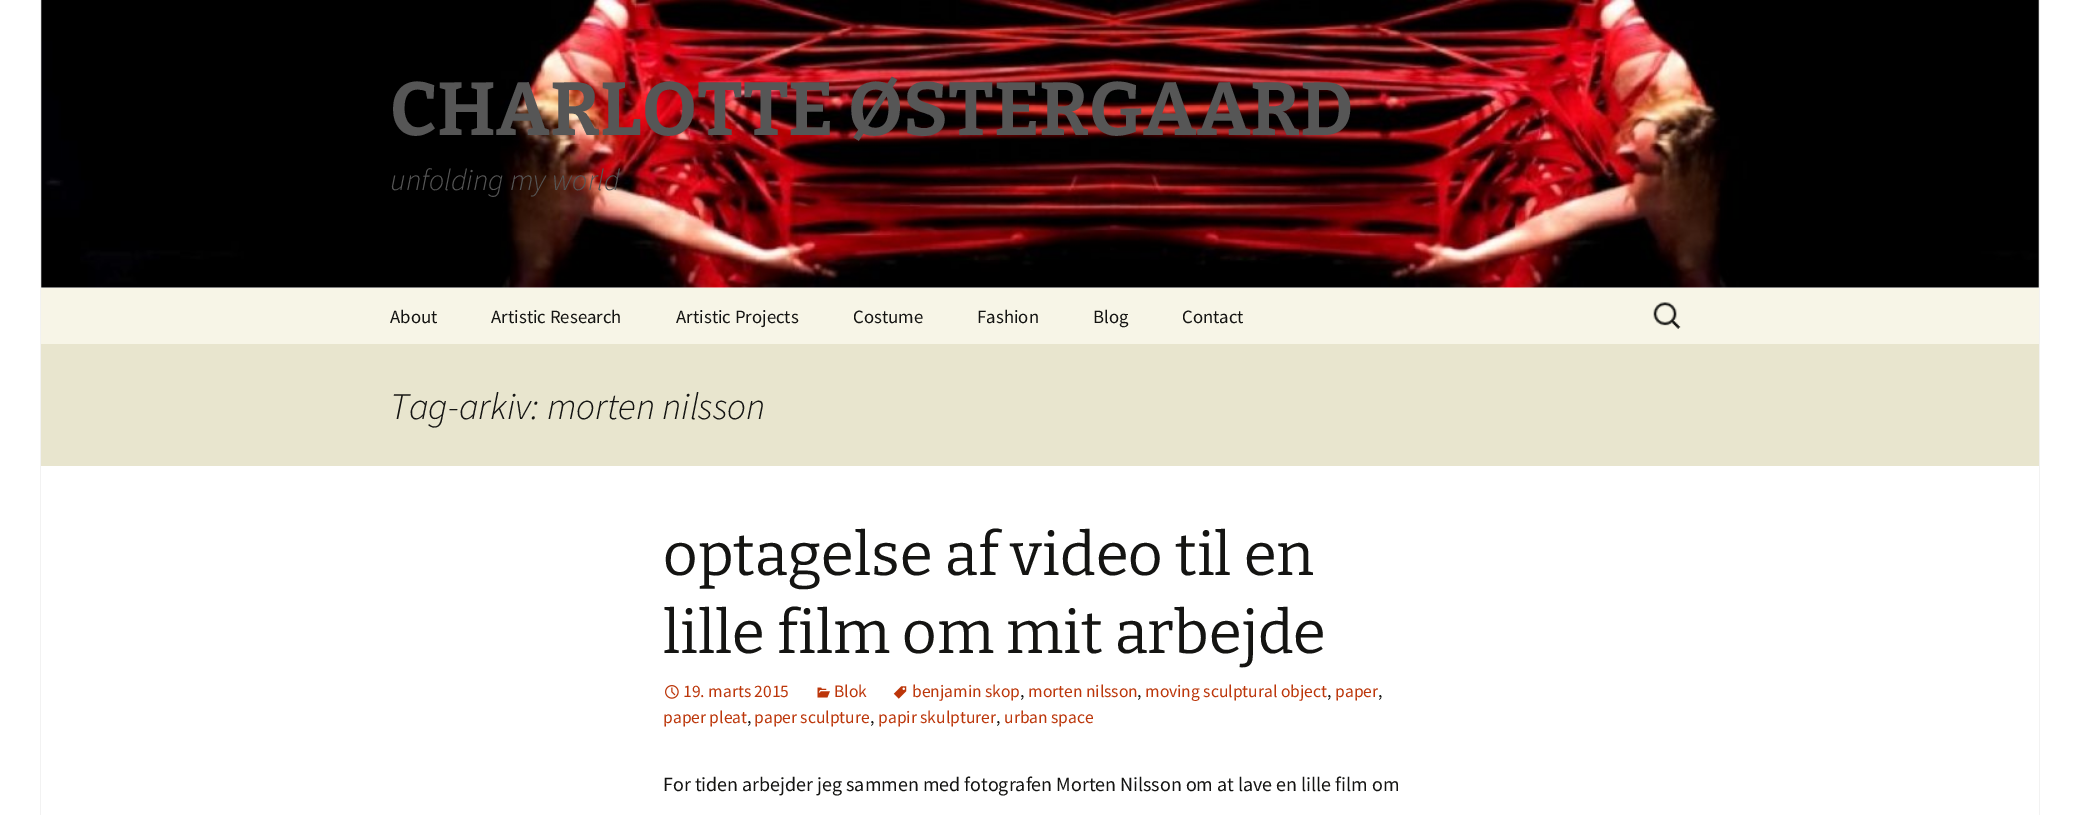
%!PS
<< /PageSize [2080 815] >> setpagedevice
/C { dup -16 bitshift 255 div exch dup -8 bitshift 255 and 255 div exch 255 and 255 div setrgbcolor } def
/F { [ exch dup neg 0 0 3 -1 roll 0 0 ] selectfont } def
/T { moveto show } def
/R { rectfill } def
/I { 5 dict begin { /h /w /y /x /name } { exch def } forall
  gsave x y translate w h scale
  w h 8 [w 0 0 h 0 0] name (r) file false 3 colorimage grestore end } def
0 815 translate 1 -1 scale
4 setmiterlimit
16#FFFFFF C
0 0 2080 815 R
16#F2F2F2 C
2039 0 1 815 R
40 0 1 815 R
(1.rgb) 41 0 1998 288 I
/Bitter-Thin 75 F
16#565656 C
(CHARLOTTE ØSTERGAARD) 390 135 T
/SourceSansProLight-LightItalic 30 F
(unfolding my world) 390 190 T
16#F7F5E7 C
41 288 1998 56 R
/SourceSansPro-Regular 18.75 F
16#141412 C
(About) 390 323 T
(Artistic Research) 491 323 T
(Artistic Projects) 676 323 T
(Costume) 853 323 T
(Fashion) 977 323 T
(Blog) 1093 323 T
(Contact) 1182 323 T
(2.rgb) 1653 302 28 27 I
16#E8E5CE C
41 344 1998 122 R
/SourceSansProLight-LightItalic 37.5 F
16#141412 C
(Tag-arkiv: morten nilsson) 390 419 T
/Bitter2-Thin 60 F
(optagelse af video til en) 663 575 T
(lille film om mit arbejde) 663 653 T
(3.rgb) 893 686 14 13 I
/SourceSansPro-Regular 17.5 F
16#BC360A C
(benjamin skop) 912 697 T
16#141412 C
(,) 1020 697 T
16#BC360A C
(morten nilsson) 1028 697 T
16#141412 C
(,) 1137 697 T
16#BC360A C
(moving sculptural object) 1145 697 T
16#141412 C
(,) 1327 697 T
16#BC360A C
(paper) 1335 697 T
16#141412 C
(,) 1378 697 T
16#BC360A C
(paper pleat) 663 723 T
16#141412 C
(,) 747 723 T
16#BC360A C
(paper sculpture) 754 723 T
16#141412 C
(,) 870 723 T
16#BC360A C
(papir skulpturer) 878 723 T
16#141412 C
(,) 996 723 T
16#BC360A C
(urban space) 1004 723 T
(4.rgb) 665 685 14 14 I
(19. marts 2015) 683 697 T
(5.rgb) 817 687 13 11 I
(Blok) 834 697 T
/SourceSansPro-Regular 20 F
16#141412 C
(For tiden arbejder jeg sammen med fotografen Morten Nilsson om at lave en lille film om) 663 791 T
showpage
